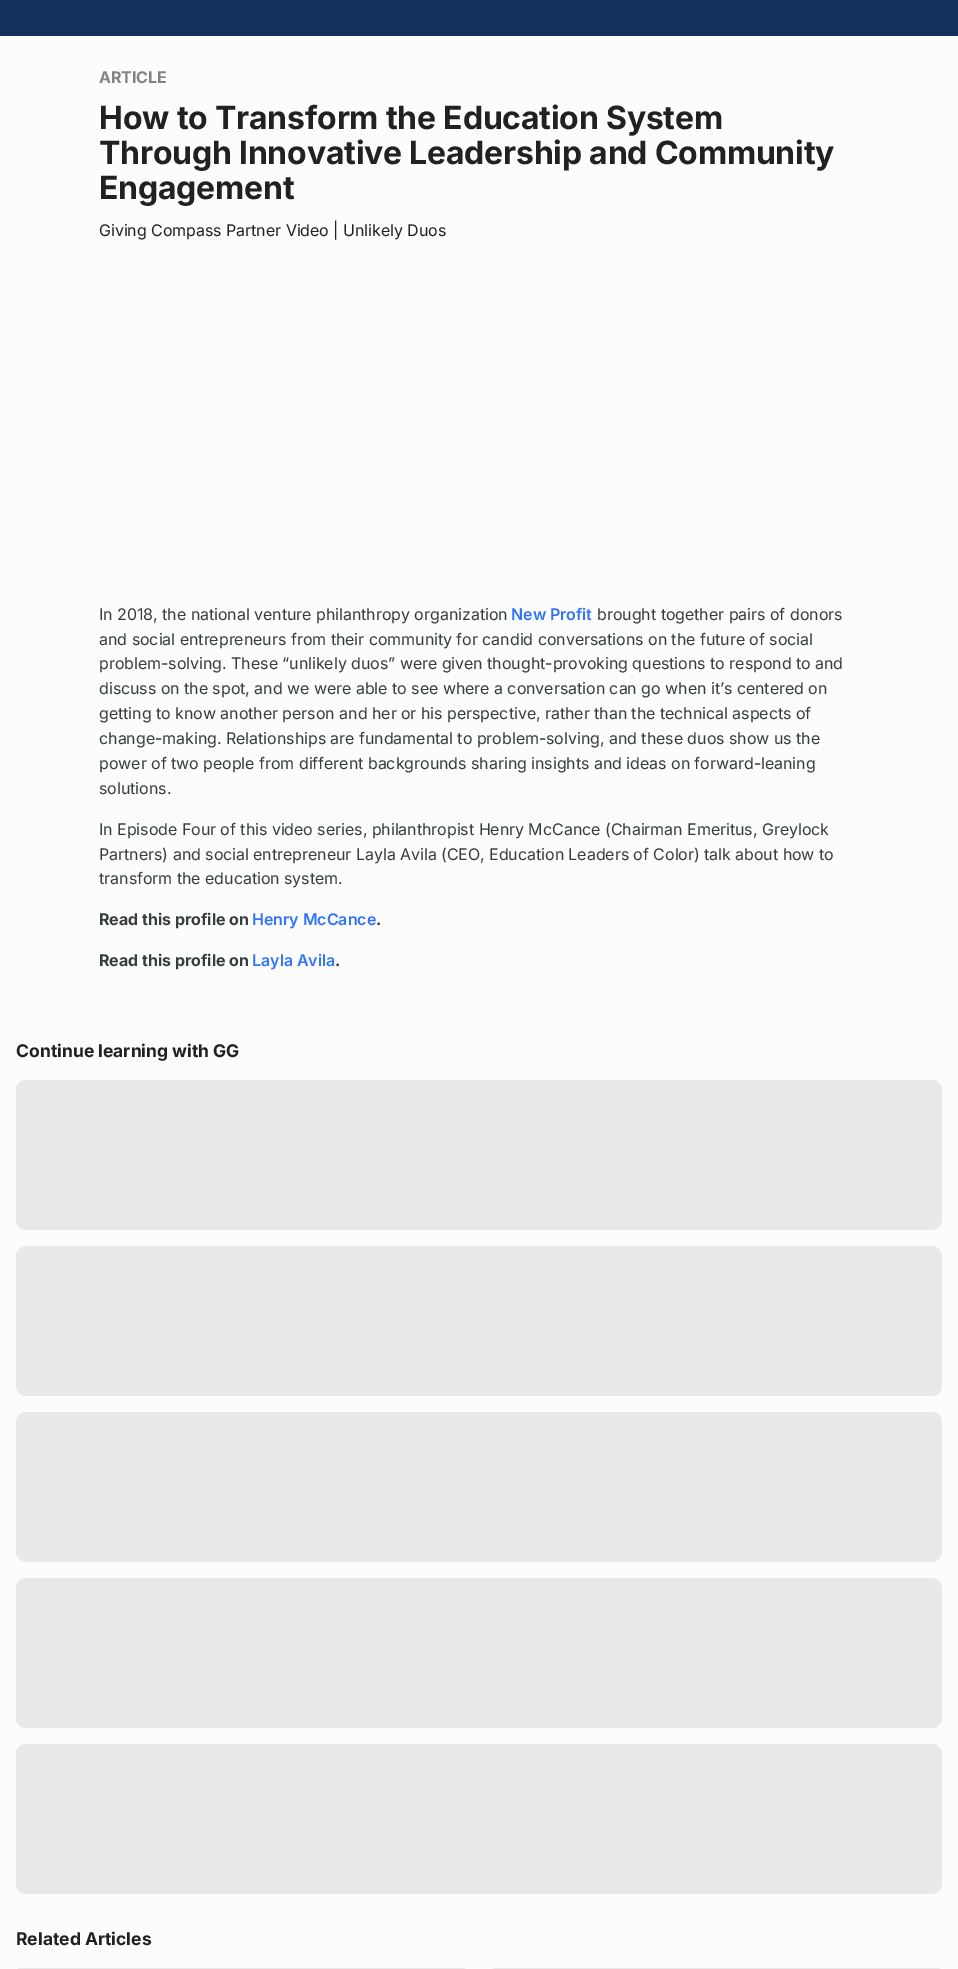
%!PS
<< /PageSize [958 1969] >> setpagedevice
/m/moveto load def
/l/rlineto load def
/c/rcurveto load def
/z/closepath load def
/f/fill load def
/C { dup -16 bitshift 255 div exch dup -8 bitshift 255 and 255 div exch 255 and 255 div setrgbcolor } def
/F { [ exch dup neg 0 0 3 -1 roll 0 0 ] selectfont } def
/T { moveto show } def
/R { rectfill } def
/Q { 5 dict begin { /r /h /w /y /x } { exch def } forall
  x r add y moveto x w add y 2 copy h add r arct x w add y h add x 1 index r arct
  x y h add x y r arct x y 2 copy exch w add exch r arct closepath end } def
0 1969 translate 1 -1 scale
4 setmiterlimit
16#FCFCFC C
0 0 958 1969 R
16#152F5F C
0 0 958 36 R
/Inter-Bold 16 F
16#838383 C
99 83 m -.05 0 (ARTICLE) ashow
/Inter-Bold 32 F
16#212121 C
99 129 m -.2 0 (How to Transform the Education System) ashow
99 164 m -.2 0 (Through Innovative Leadership and Community) ashow
99 199 m -.2 0 (Engagement) ashow
/Inter-Regular 16 F
99 236 m -.05 0 (Giving Compass Partner Video | Unlikely Duos) ashow
16#363D3E C
99 620 m -.05 0 (In 2018, the national venture philanthropy organization) ashow
/Inter-SemiBold 16 F
16#3174F8 C
511 620 m -.05 0 (New Profit) ashow
/Inter-Regular 16 F
16#363D3E C
597 620 m -.05 0 (brought together pairs of donors) ashow
99 645 m -.05 0 (and social entrepreneurs from their community for candid conversations on the future of social) ashow
99 669 m -.05 0 (problem-solving. These “unlikely duos” were given thought-provoking questions to respond to and) ashow
99 694 m -.05 0 (discuss on the spot, and we were able to see where a conversation can go when it’s centered on) ashow
99 719 m -.05 0 (getting to know another person and her or his perspective, rather than the technical aspects of) ashow
99 744 m -.05 0 (change-making. Relationships are fundamental to problem-solving, and these duos show us the) ashow
99 769 m -.05 0 (power of two people from different backgrounds sharing insights and ideas on forward-leaning) ashow
99 794 m -.05 0 (solutions.) ashow
99 835 m -.05 0 (In Episode Four of this video series, philanthropist Henry McCance \(Chairman Emeritus, Greylock) ashow
99 860 m -.05 0 (Partners\) and social entrepreneur Layla Avila \(CEO, Education Leaders of Color\) talk about how to) ashow
99 884 m -.05 0 (transform the education system.) ashow
/Inter-Bold 16 F
99 925 m -.05 0 (Read this profile on) ashow
/Inter-SemiBold 16 F
16#3174F8 C
252 925 m -.05 0 (Henry McCance) ashow
/Inter-Bold 16 F
16#363D3E C
376 925 m -.05 0 (.) ashow
99 966 m -.05 0 (Read this profile on) ashow
/Inter-SemiBold 16 F
16#3174F8 C
252 966 m -.05 0 (Layla Avila) ashow
/Inter-Bold 16 F
16#363D3E C
335 966 m -.05 0 (.) ashow
16#F8F8F8 C
16 1025 926 1 R
/Inter-Bold 17.5 F
16#212121 C
(Continue learning with GG) 16 1057 T
16#E9E9E9 C
16 1080 926 150 10 Q f
16 1246 926 150 10 Q f
16 1412 926 150 10 Q f
16 1578 926 150 10 Q f
16 1744 926 150 10 Q f
16#212121 C
(Related Articles) 16 1945 T
16#E8E8E8 C
20 1968 m 443 0 l 2 0 4 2 4 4 c 0 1 l -451 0 l 0 -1 l 0 -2 2 -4 4 -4 c z f
495 1968 m 443 0 l 2 0 4 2 4 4 c 0 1 l -451 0 l 0 -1 l 0 -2 2 -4 4 -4 c z f
showpage
